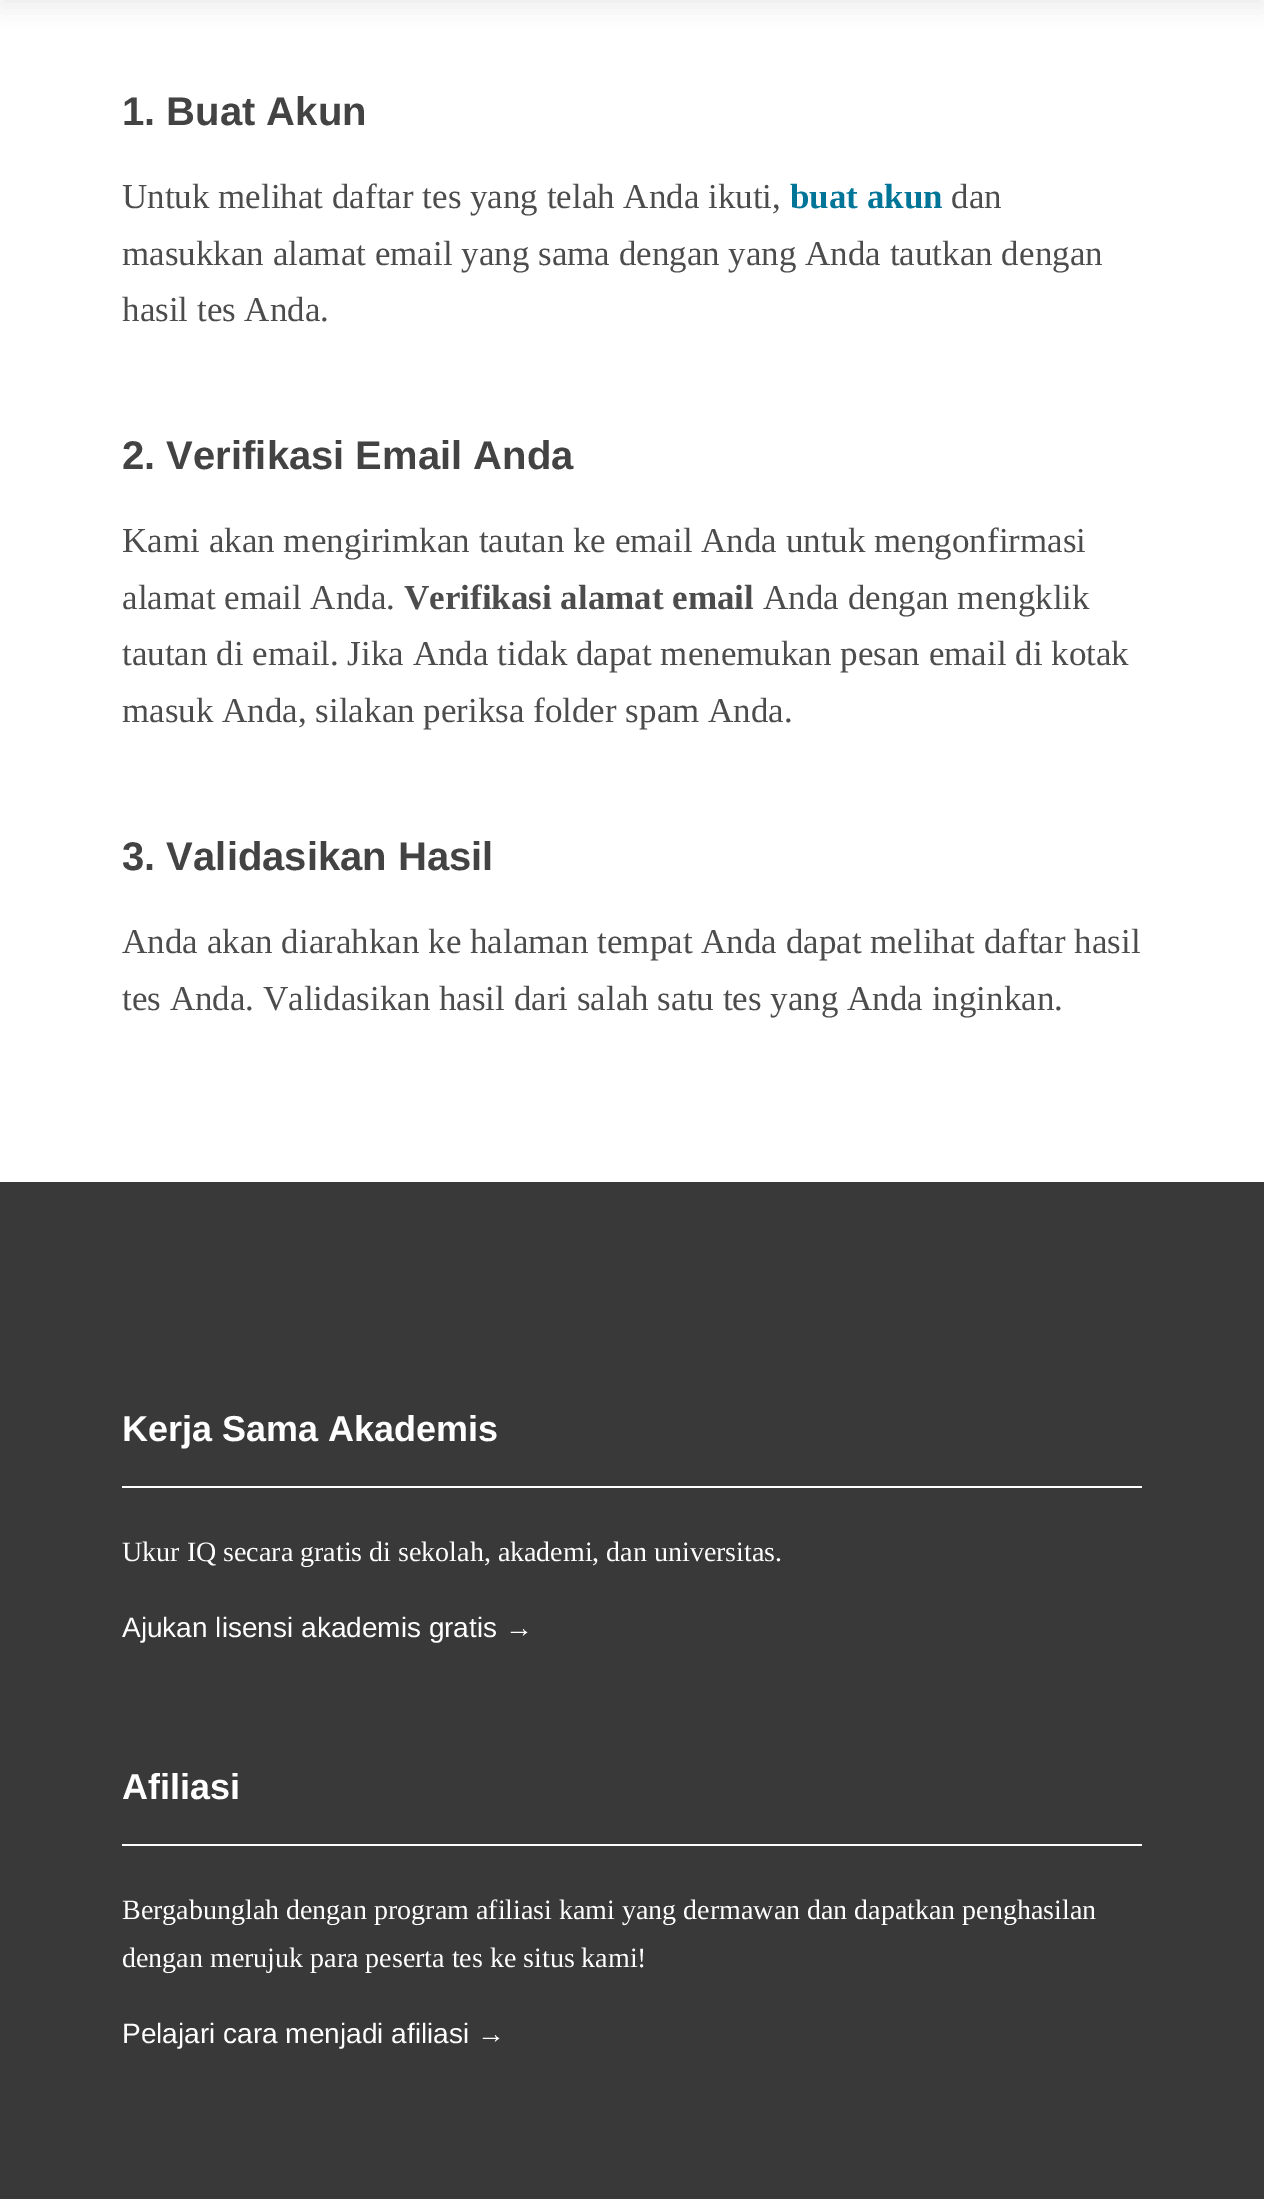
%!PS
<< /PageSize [1264 2199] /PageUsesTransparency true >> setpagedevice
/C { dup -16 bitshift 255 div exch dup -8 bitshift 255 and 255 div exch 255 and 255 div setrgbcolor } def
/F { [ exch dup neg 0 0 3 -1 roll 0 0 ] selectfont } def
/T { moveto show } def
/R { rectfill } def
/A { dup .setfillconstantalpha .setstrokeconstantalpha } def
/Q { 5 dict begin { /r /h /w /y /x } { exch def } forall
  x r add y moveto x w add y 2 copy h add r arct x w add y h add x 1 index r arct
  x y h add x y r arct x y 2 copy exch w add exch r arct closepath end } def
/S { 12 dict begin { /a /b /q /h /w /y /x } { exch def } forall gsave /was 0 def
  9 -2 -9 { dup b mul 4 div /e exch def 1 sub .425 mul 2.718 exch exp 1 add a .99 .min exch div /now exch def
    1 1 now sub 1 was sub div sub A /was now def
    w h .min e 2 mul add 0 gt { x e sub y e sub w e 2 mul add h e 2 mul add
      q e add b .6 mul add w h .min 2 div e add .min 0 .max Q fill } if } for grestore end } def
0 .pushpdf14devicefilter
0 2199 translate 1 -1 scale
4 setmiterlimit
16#FFFFFF C
0 0 1264 2199 R
16#000000 C
0 -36 1264 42 0 12 .08 S
/LiberationSans-Bold 40 F
16#434343 C
(1. Buat Akun) 122 125 T
/LiberationSerif-Regular 35 F
16#4C4C4C C
(Untuk melihat daftar tes yang telah Anda ikuti,) 122 208 T
/LiberationSerif-Bold 35 F
16#007598 C
(buat akun) 790 208 T
/LiberationSerif-Regular 35 F
16#4C4C4C C
(dan) 951 208 T
(masukkan alamat email yang sama dengan yang Anda tautkan dengan) 122 265 T
(hasil tes Anda.) 122 321 T
/LiberationSans-Bold 40 F
16#434343 C
(2. Verifikasi Email Anda) 122 469 T
/LiberationSerif-Regular 35 F
16#4C4C4C C
(Kami akan mengirimkan tautan ke email Anda untuk mengonfirmasi) 122 552 T
(alamat email Anda.) 122 609 T
/LiberationSerif-Bold 35 F
(Verifikasi alamat email) 404 609 T
/LiberationSerif-Regular 35 F
(Anda dengan mengklik) 763 609 T
(tautan di email. Jika Anda tidak dapat menemukan pesan email di kotak) 122 665 T
(masuk Anda, silakan periksa folder spam Anda.) 122 722 T
/LiberationSans-Bold 40 F
16#434343 C
(3. Validasikan Hasil) 122 870 T
/LiberationSerif-Regular 35 F
16#4C4C4C C
(Anda akan diarahkan ke halaman tempat Anda dapat melihat daftar hasil) 122 953 T
(tes Anda. Validasikan hasil dari salah satu tes yang Anda inginkan.) 122 1010 T
16#393939 C
0 1182 1264 1017 R
16#FFFFFF C
122 1486 1020 2 R
/LiberationSans-Bold 36 F
(Kerja Sama Akademis) 122 1441 T
/LiberationSerif-Regular 28 F
(Ukur IQ secara gratis di sekolah, akademi, dan universitas.) 122 1561 T
/LiberationSans-Regular 28 F
(Ajukan lisensi akademis gratis →) 122 1637 T
122 1844 1020 2 R
/LiberationSans-Bold 36 F
(Afiliasi) 122 1799 T
/LiberationSerif-Regular 28 F
(Bergabunglah dengan program afiliasi kami yang dermawan dan dapatkan penghasilan) 122 1919 T
(dengan merujuk para peserta tes ke situs kami!) 122 1967 T
/LiberationSans-Regular 28 F
(Pelajari cara menjadi afiliasi →) 122 2043 T
.poppdf14devicefilter showpage
